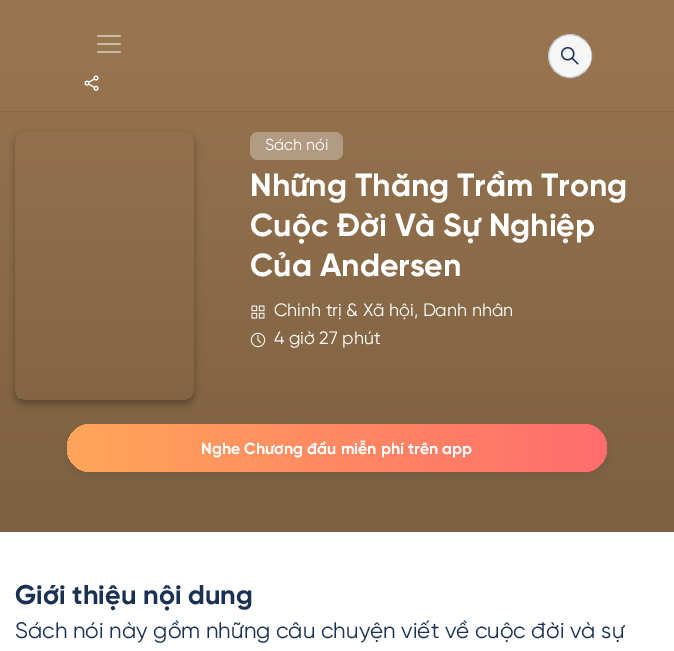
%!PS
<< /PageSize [674 651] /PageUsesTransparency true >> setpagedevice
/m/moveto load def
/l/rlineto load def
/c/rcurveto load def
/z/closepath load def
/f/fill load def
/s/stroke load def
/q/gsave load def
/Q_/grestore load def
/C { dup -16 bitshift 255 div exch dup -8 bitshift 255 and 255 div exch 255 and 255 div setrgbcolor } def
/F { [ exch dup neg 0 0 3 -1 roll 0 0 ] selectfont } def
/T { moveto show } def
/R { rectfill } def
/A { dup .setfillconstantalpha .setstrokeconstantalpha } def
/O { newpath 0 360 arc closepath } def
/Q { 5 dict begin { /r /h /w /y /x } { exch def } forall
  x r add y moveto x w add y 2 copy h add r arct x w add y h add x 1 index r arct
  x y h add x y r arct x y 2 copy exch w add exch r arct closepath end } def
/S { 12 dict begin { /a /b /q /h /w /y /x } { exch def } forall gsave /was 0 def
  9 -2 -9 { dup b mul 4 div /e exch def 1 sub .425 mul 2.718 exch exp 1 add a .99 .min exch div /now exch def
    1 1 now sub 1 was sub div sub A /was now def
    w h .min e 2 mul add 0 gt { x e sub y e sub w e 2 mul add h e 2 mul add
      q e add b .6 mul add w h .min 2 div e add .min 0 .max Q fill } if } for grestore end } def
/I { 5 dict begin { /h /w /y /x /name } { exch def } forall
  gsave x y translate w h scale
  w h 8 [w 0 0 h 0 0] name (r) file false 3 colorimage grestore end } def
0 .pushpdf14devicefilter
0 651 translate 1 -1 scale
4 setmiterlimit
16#FFFFFF C
0 0 674 651 R
q 0 0 m 674 0 l 0 111 l -674 0 l z clip newpath
<< /ShadingType 2 /ColorSpace /DeviceRGB /Coords [337 111 337 0] /Extend [true true] /Function << /FunctionType 2 /Domain [0 1] /C0 [.58 .451 .306] /C1 [.596 .463 .314] /N 1 >> >> shfill Q_
16#896A48 C
0 111 674 1 R
(1.rgb) 97 35 24 18 I
(2.rgb) 84 75 15 16 I
16#F6F6F7 C
570 56 21.5 O q f Q_
16#BFC4CC C
s
q
549 35 42 42 21 Q clip newpath
16#F6F6F7 C
567 43 24 26 R
Q_
(3.rgb) 560 46 19 19 I
q 0 112 m 674 0 l 0 420 l -674 0 l z clip newpath
<< /ShadingType 2 /ColorSpace /DeviceRGB /Coords [337 532 337 72] /Extend [true true] /Function << /FunctionType 2 /Domain [0 1] /C0 [.486 .376 .255] /C1 [.584 .451 .306] /N 1 >> >> shfill Q_
q
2 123 m 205 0 l 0 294 l -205 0 l z 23 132 m 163 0 l 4.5 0 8 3.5 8 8 c 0 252 l 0 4.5 -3.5 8 -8 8 c -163 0 l -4.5 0 -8 -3.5 -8 -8 c 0 -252 l 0 -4.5 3.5 -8 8 -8 c z eoclip newpath
16#000000 C
15 136 179 268 8 4 .3 S
Q_
16#B29B82 C
250 132 93 28 8 Q f
/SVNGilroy-Regular 16 F
16#FFFFFF C
(Sách nói) 265 150 T
/SVNGilroy-Bold 32 F
(Những Thăng Trầm Trong) 250 196 T
(Cuộc Đời Và Sự Nghiệp) 250 236 T
(Của Andersen) 250 276 T
(4.rgb) 251 305 14 14 I
/SVNGilroy-Regular 18 F
(Chính trị & Xã hội, Danh nhân) 274 316 T
(5.rgb) 250 332 16 16 I
(4 giờ 27 phút) 274 344 T
16#1A3154 C
67 428 540 48 24 5 .15 S
q 67 424 540 48 24 Q clip newpath
<< /ShadingType 2 /ColorSpace /DeviceRGB /Coords [67 448 607 448] /Extend [true true] /Function << /FunctionType 2 /Domain [0 1] /C0 [1 .651 .349] /C1 [1 .427 .427] /N 1 >> >> shfill Q_
/SVNGilroy-Bold 16 F
16#FFFFFF C
(Nghe Chương đầu miễn phí trên app) 201 454 T
/SVNGilroy-Bold 27 F
16#1A3154 C
(Giới thiệu nội dung) 15 604 T
/SVNGilroy-Regular 22.5 F
(Sách nói này gồm những câu chuyện viết về cuộc đời và sự) 15 638 T
.poppdf14devicefilter showpage
